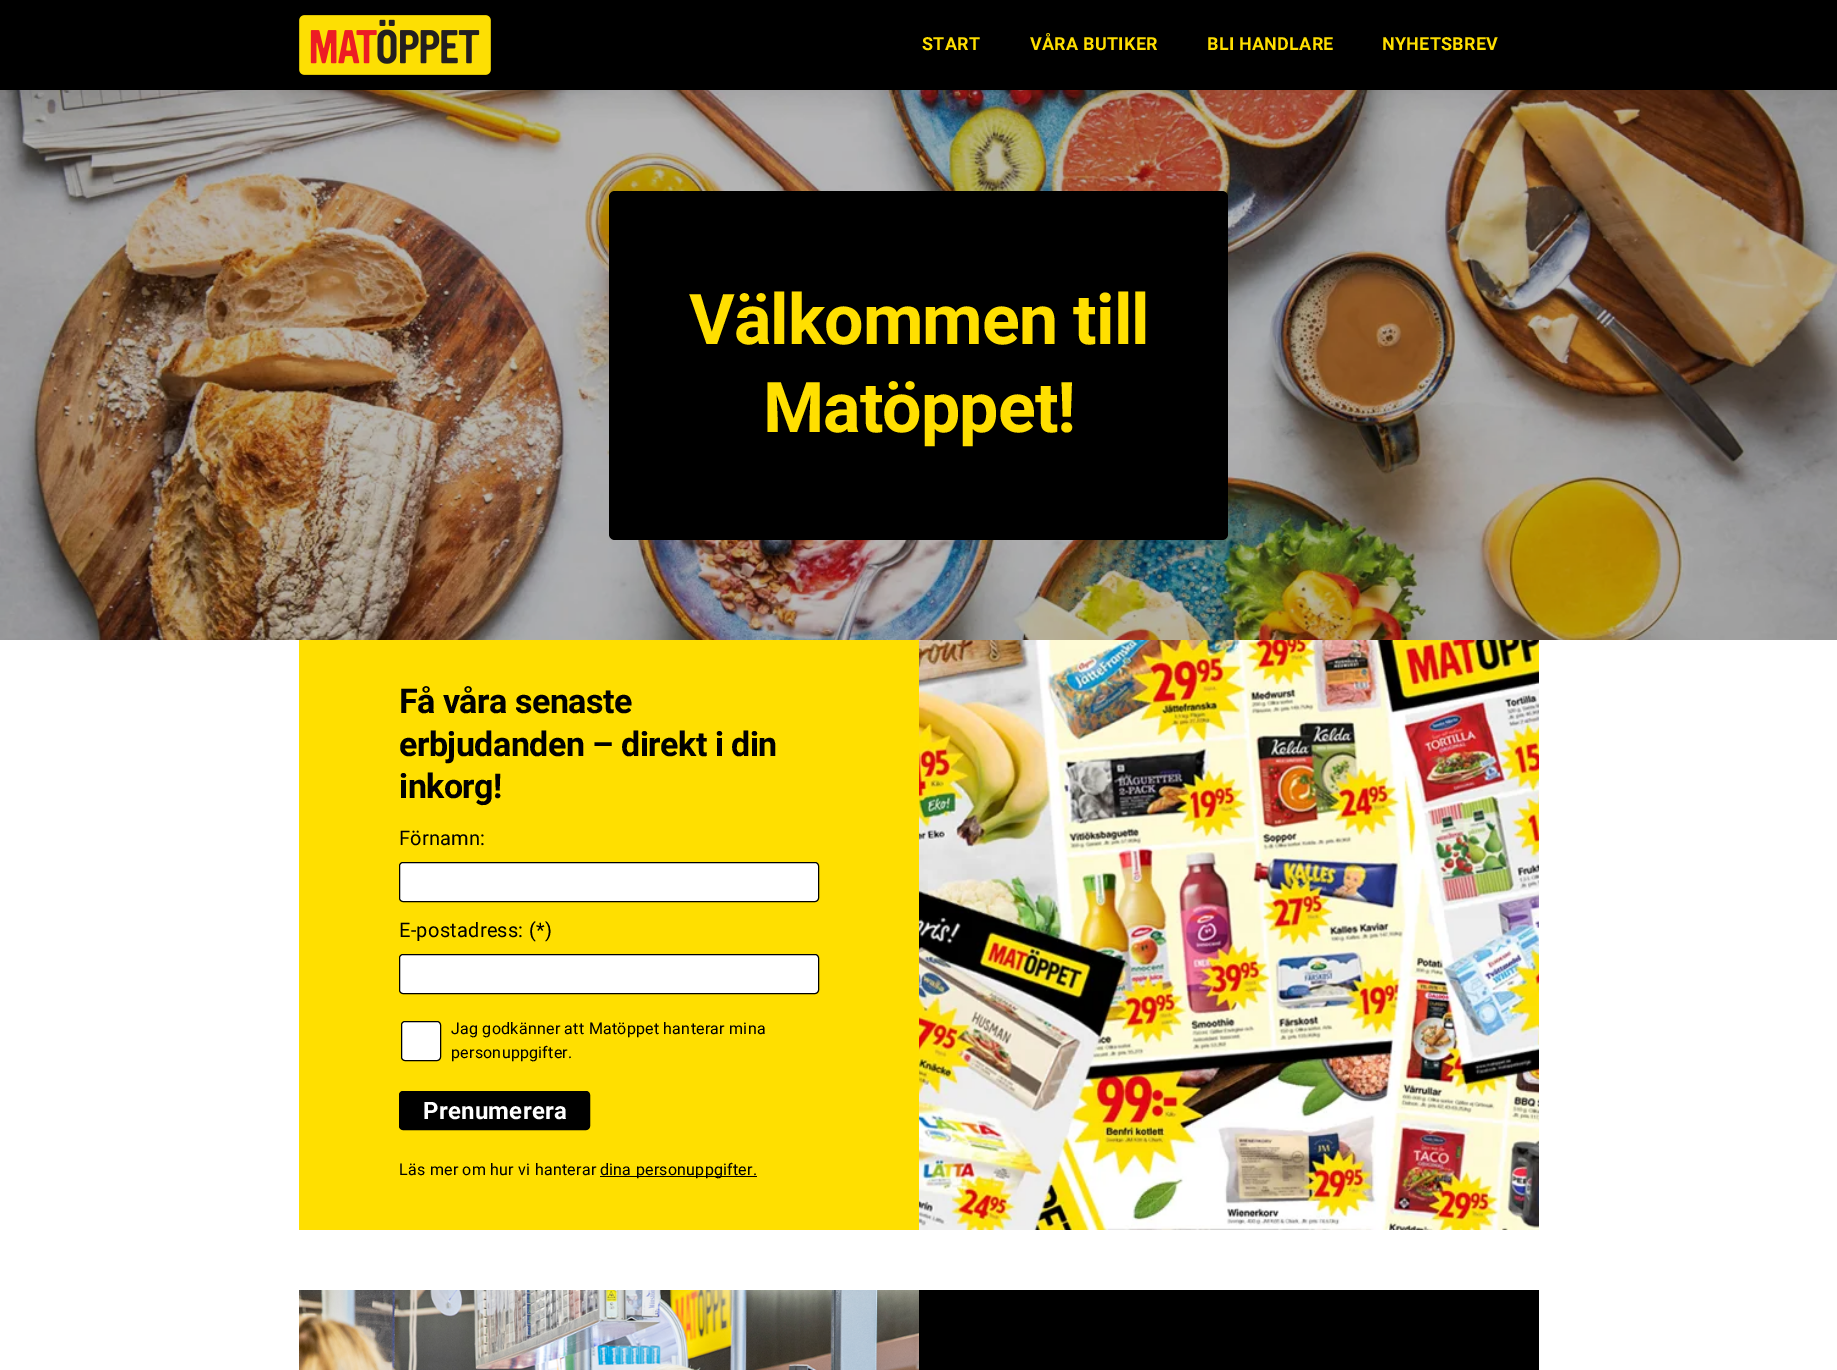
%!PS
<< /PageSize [1837 1370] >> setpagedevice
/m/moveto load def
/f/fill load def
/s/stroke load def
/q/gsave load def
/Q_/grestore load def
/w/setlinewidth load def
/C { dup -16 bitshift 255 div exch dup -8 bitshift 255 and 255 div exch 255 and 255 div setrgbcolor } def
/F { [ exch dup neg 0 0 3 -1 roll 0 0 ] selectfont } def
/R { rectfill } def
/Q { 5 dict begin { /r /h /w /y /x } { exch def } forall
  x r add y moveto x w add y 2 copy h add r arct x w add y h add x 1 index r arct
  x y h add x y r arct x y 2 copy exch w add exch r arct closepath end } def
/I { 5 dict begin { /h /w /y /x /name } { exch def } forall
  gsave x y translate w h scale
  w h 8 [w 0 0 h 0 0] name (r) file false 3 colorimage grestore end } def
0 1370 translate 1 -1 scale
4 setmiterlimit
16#FFFFFF C
0 0 1837 1370 R
16#000000 C
0 0 1837 90 R
(1.rgb) 299 15 192 60 I
/Roboto-Bold 18 F
16#FFDF00 C
922 50 m .25 0 (START) ashow
1030 50 m .25 0 (VÅRA BUTIKER) ashow
1207 50 m .25 0 (BLI HANDLARE) ashow
1382 50 m .25 0 (NYHETSBREV) ashow
(2.rgb) 0 90 1837 550 I
16#000000 C
609 191 619 349 6 Q f
/Roboto-Bold 70 F
16#FFDF00 C
689 344 m -1 0 (Välkommen till) ashow
763 432 m -1 0 (Matöppet!) ashow
299 640 620 590 R
/Roboto-Bold 34 F
16#000000 C
399 713 m -.5 0 (Få våra senaste) ashow
399 756 m -.5 0 (erbjudanden – direkt i din) ashow
399 798 m -.5 0 (inkorg!) ashow
/Roboto-Regular 20 F
399 845 m .25 0 (Förnamn:) ashow
16#FFFFFF C
399.5 862.5 419 39 3.5 Q q f Q_
16#000000 C
s
399 937 m .25 0 (E-postadress: \(*\)) ashow
16#FFFFFF C
399.5 954.5 419 39 3.5 Q q f Q_
16#000000 C
s
16#FFFFFF C
401.5 1021.5 39 39 3.5 Q q f Q_
16#000000 C
s
/Roboto-Regular 16 F
451 1034 m .25 0 (Jag godkänner att Matöppet hanterar mina) ashow
451 1058 m .25 0 (personuppgifter.) ashow
400 1092 189 37 3 Q q f Q_
2 w
s
/Roboto-Bold 24 F
16#FFFFFF C
423 1119 m .25 0 (Prenumerera) ashow
/Roboto-Regular 16 F
16#000000 C
399 1175 m .25 0 (Läs mer om hur vi hanterar) ashow
600 1176 157 1 R
600 1175 m .25 0 (dina personuppgifter.) ashow
(3.rgb) 919 640 620 590 I
(4.rgb) 299 1290 620 80 I
919 1290 620 80 R
showpage
